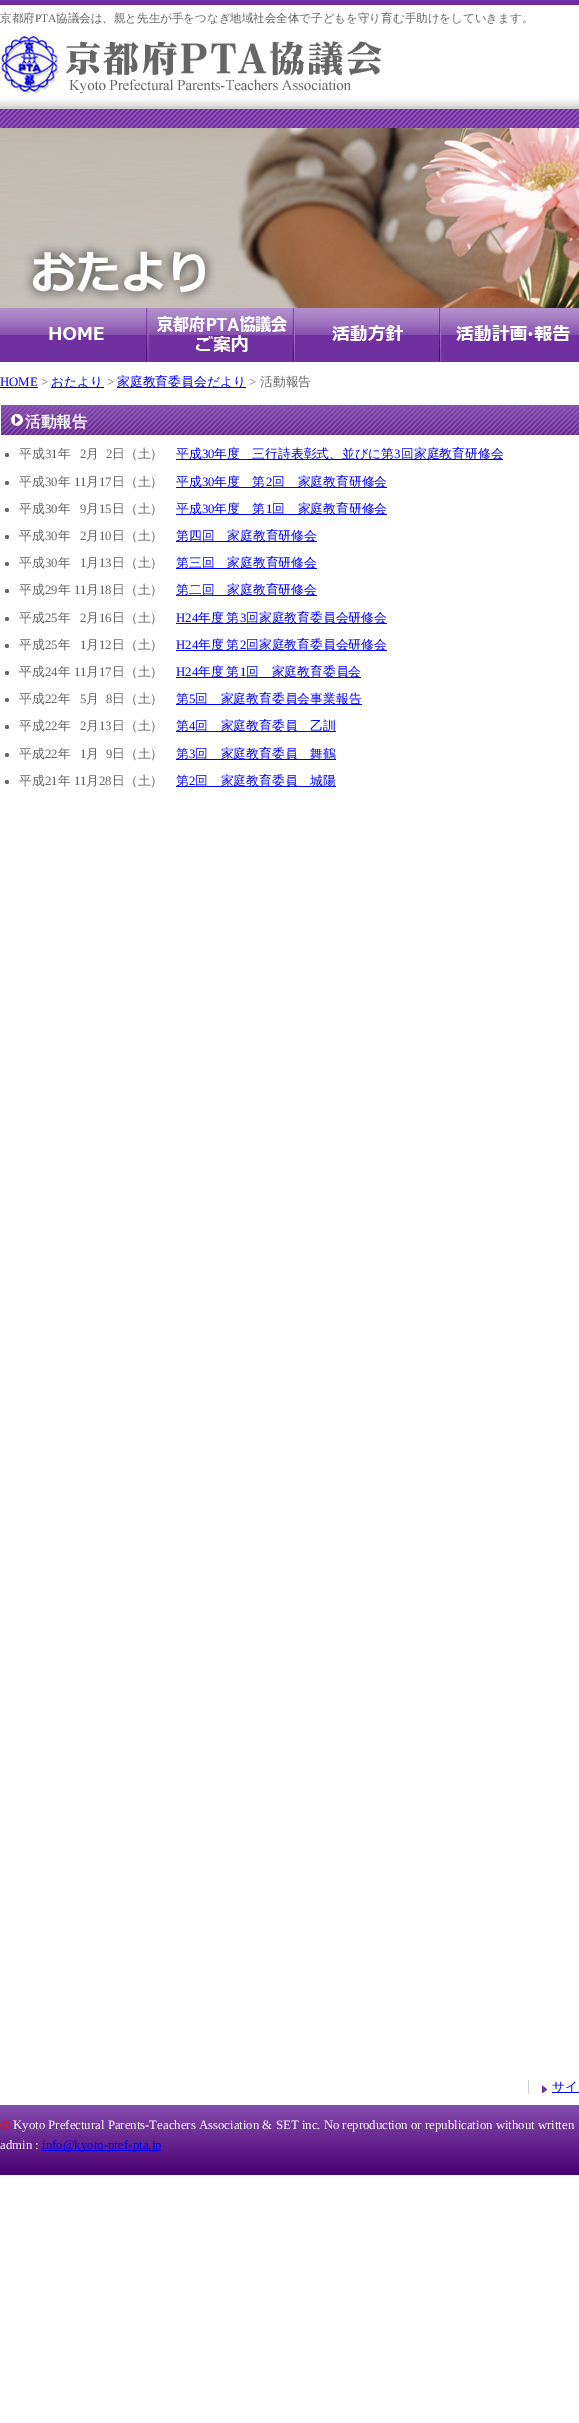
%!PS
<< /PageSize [579 2423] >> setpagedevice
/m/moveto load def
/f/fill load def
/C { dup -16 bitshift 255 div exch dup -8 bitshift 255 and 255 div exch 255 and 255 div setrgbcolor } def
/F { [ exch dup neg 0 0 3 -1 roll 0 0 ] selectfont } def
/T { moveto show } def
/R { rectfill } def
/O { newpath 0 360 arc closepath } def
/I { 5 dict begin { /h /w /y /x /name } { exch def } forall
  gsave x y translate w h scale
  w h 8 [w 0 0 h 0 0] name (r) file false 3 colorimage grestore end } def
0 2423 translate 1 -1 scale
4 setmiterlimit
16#FFFFFF C
0 0 579 2423 R
(1.rgb) 0 0 579 128 I
/WenQuanYiZenHei-Medium 11.5 F
16#666666 C
(京都府) 0 22 T
/LiberationSerif-Regular 11.5 F
(PTA) 35 22 T
/WenQuanYiZenHei-Medium 11.5 F
(協議会は、親と先生が手をつなぎ地域社会全体で子どもを守り育む手助けをしていきます。) 56 22 T
(2.rgb) 0 33 382 63 I
(3.rgb) 0 128 579 180 I
(4.rgb) 0 308 147 54 I
(5.rgb) 147 308 147 54 I
(6.rgb) 294 308 146 54 I
(7.rgb) 440 308 139 54 I
/LiberationSerif-Regular 12.8 F
16#0000FF C
(HOME) 0 386 T
0 387 38 1 R
16#666666 C
(>) 41 386 T
16#0000FF C
51 387 53 1 R
/WenQuanYiZenHei-Medium 12.8 F
(おたより) 51 386 T
/LiberationSerif-Regular 12.8 F
16#666666 C
(>) 107 386 T
16#0000FF C
117 387 129 1 R
/WenQuanYiZenHei-Medium 12.8 F
(家庭教育委員会だより) 117 386 T
/LiberationSerif-Regular 12.8 F
16#666666 C
(>) 249 386 T
/WenQuanYiZenHei-Medium 12.8 F
(活動報告) 260 386 T
(8.rgb) 1 405 578 30 I
/WenQuanYiZenHei-Bold 15.5 F
16#FFFFFF C
(活動報告) 25 427 T
16#666666 C
7 455 2 O f
/WenQuanYiZenHei-Medium 12.8 F
(平成) 19 458 T
/LiberationSerif-Regular 12.8 F
(31) 45 458 T
/WenQuanYiZenHei-Medium 12.8 F
(年) 58 458 T
/LiberationSerif-Regular 12.8 F
(2) 80 458 T
/WenQuanYiZenHei-Medium 12.8 F
(月) 86 458 T
/LiberationSerif-Regular 12.8 F
(2) 106 458 T
/WenQuanYiZenHei-Medium 12.8 F
(日（土）) 112 458 T
16#0000FF C
176 459 327 1 R
(平成) 176 458 T
/LiberationSerif-Regular 12.8 F
(30) 202 458 T
/WenQuanYiZenHei-Medium 12.8 F
(年度　三行詩表彰式、並びに第) 214 458 T
/LiberationSerif-Regular 12.8 F
(3) 394 458 T
/WenQuanYiZenHei-Medium 12.8 F
(回家庭教育研修会) 401 458 T
16#666666 C
7 483 2 O f
(平成) 19 486 T
/LiberationSerif-Regular 12.8 F
(30) 45 486 T
/WenQuanYiZenHei-Medium 12.8 F
(年) 58 486 T
/LiberationSerif-Regular 12.8 F
(11) 74 486 T
/WenQuanYiZenHei-Medium 12.8 F
(月) 86 486 T
/LiberationSerif-Regular 12.8 F
(17) 99 486 T
/WenQuanYiZenHei-Medium 12.8 F
(日（土）) 112 486 T
16#0000FF C
176 487 211 1 R
(平成) 176 486 T
/LiberationSerif-Regular 12.8 F
(30) 202 486 T
/WenQuanYiZenHei-Medium 12.8 F
(年度　第) 214 486 T
/LiberationSerif-Regular 12.8 F
(2) 266 486 T
/WenQuanYiZenHei-Medium 12.8 F
(回　家庭教育研修会) 272 486 T
16#666666 C
7 510 2 O f
(平成) 19 513 T
/LiberationSerif-Regular 12.8 F
(30) 45 513 T
/WenQuanYiZenHei-Medium 12.8 F
(年) 58 513 T
/LiberationSerif-Regular 12.8 F
(9) 80 513 T
/WenQuanYiZenHei-Medium 12.8 F
(月) 86 513 T
/LiberationSerif-Regular 12.8 F
(15) 99 513 T
/WenQuanYiZenHei-Medium 12.8 F
(日（土）) 112 513 T
16#0000FF C
176 514 211 1 R
(平成) 176 513 T
/LiberationSerif-Regular 12.8 F
(30) 202 513 T
/WenQuanYiZenHei-Medium 12.8 F
(年度　第) 214 513 T
/LiberationSerif-Regular 12.8 F
(1) 266 513 T
/WenQuanYiZenHei-Medium 12.8 F
(回　家庭教育研修会) 272 513 T
16#666666 C
7 537 2 O f
(平成) 19 540 T
/LiberationSerif-Regular 12.8 F
(30) 45 540 T
/WenQuanYiZenHei-Medium 12.8 F
(年) 58 540 T
/LiberationSerif-Regular 12.8 F
(2) 80 540 T
/WenQuanYiZenHei-Medium 12.8 F
(月) 86 540 T
/LiberationSerif-Regular 12.8 F
(10) 99 540 T
/WenQuanYiZenHei-Medium 12.8 F
(日（土）) 112 540 T
16#0000FF C
176 541 141 1 R
(第四回　家庭教育研修会) 176 540 T
16#666666 C
7 564 2 O f
(平成) 19 567 T
/LiberationSerif-Regular 12.8 F
(30) 45 567 T
/WenQuanYiZenHei-Medium 12.8 F
(年) 58 567 T
/LiberationSerif-Regular 12.8 F
(1) 80 567 T
/WenQuanYiZenHei-Medium 12.8 F
(月) 86 567 T
/LiberationSerif-Regular 12.8 F
(13) 99 567 T
/WenQuanYiZenHei-Medium 12.8 F
(日（土）) 112 567 T
16#0000FF C
176 568 141 1 R
(第三回　家庭教育研修会) 176 567 T
16#666666 C
7 591 2 O f
(平成) 19 594 T
/LiberationSerif-Regular 12.8 F
(29) 45 594 T
/WenQuanYiZenHei-Medium 12.8 F
(年) 58 594 T
/LiberationSerif-Regular 12.8 F
(11) 74 594 T
/WenQuanYiZenHei-Medium 12.8 F
(月) 86 594 T
/LiberationSerif-Regular 12.8 F
(18) 99 594 T
/WenQuanYiZenHei-Medium 12.8 F
(日（土）) 112 594 T
16#0000FF C
176 595 141 1 R
(第二回　家庭教育研修会) 176 594 T
16#666666 C
7 619 2 O f
(平成) 19 622 T
/LiberationSerif-Regular 12.8 F
(25) 45 622 T
/WenQuanYiZenHei-Medium 12.8 F
(年) 58 622 T
/LiberationSerif-Regular 12.8 F
(2) 80 622 T
/WenQuanYiZenHei-Medium 12.8 F
(月) 86 622 T
/LiberationSerif-Regular 12.8 F
(16) 99 622 T
/WenQuanYiZenHei-Medium 12.8 F
(日（土）) 112 622 T
/LiberationSerif-Regular 12.8 F
16#0000FF C
(H24) 176 622 T
176 623 211 1 R
/WenQuanYiZenHei-Medium 12.8 F
198 622 m -1 0 32 (年度 第) widthshow
/LiberationSerif-Regular 12.8 F
(3) 240 622 T
/WenQuanYiZenHei-Medium 12.8 F
(回家庭教育委員会研修会) 246 622 T
16#666666 C
7 646 2 O f
(平成) 19 649 T
/LiberationSerif-Regular 12.8 F
(25) 45 649 T
/WenQuanYiZenHei-Medium 12.8 F
(年) 58 649 T
/LiberationSerif-Regular 12.8 F
(1) 80 649 T
/WenQuanYiZenHei-Medium 12.8 F
(月) 86 649 T
/LiberationSerif-Regular 12.8 F
(12) 99 649 T
/WenQuanYiZenHei-Medium 12.8 F
(日（土）) 112 649 T
/LiberationSerif-Regular 12.8 F
16#0000FF C
(H24) 176 649 T
176 650 211 1 R
/WenQuanYiZenHei-Medium 12.8 F
198 649 m -1 0 32 (年度 第) widthshow
/LiberationSerif-Regular 12.8 F
(2) 240 649 T
/WenQuanYiZenHei-Medium 12.8 F
(回家庭教育委員会研修会) 246 649 T
16#666666 C
7 673 2 O f
(平成) 19 676 T
/LiberationSerif-Regular 12.8 F
(24) 45 676 T
/WenQuanYiZenHei-Medium 12.8 F
(年) 58 676 T
/LiberationSerif-Regular 12.8 F
(11) 74 676 T
/WenQuanYiZenHei-Medium 12.8 F
(月) 86 676 T
/LiberationSerif-Regular 12.8 F
(17) 99 676 T
/WenQuanYiZenHei-Medium 12.8 F
(日（土）) 112 676 T
/LiberationSerif-Regular 12.8 F
16#0000FF C
(H24) 176 676 T
176 677 185 1 R
/WenQuanYiZenHei-Medium 12.8 F
198 676 m -1 0 32 (年度 第) widthshow
/LiberationSerif-Regular 12.8 F
(1) 240 676 T
/WenQuanYiZenHei-Medium 12.8 F
(回　家庭教育委員会) 246 676 T
16#666666 C
7 700 2 O f
(平成) 19 703 T
/LiberationSerif-Regular 12.8 F
(22) 45 703 T
/WenQuanYiZenHei-Medium 12.8 F
(年) 58 703 T
/LiberationSerif-Regular 12.8 F
(5) 80 703 T
/WenQuanYiZenHei-Medium 12.8 F
(月) 86 703 T
/LiberationSerif-Regular 12.8 F
(8) 106 703 T
/WenQuanYiZenHei-Medium 12.8 F
(日（土）) 112 703 T
16#0000FF C
176 704 186 1 R
(第) 176 703 T
/LiberationSerif-Regular 12.8 F
(5) 189 703 T
/WenQuanYiZenHei-Medium 12.8 F
(回　家庭教育委員会事業報告) 195 703 T
16#666666 C
7 727 2 O f
(平成) 19 730 T
/LiberationSerif-Regular 12.8 F
(22) 45 730 T
/WenQuanYiZenHei-Medium 12.8 F
(年) 58 730 T
/LiberationSerif-Regular 12.8 F
(2) 80 730 T
/WenQuanYiZenHei-Medium 12.8 F
(月) 86 730 T
/LiberationSerif-Regular 12.8 F
(13) 99 730 T
/WenQuanYiZenHei-Medium 12.8 F
(日（土）) 112 730 T
16#0000FF C
176 731 160 1 R
(第) 176 730 T
/LiberationSerif-Regular 12.8 F
(4) 189 730 T
/WenQuanYiZenHei-Medium 12.8 F
(回　家庭教育委員　乙訓) 195 730 T
16#666666 C
7 755 2 O f
(平成) 19 758 T
/LiberationSerif-Regular 12.8 F
(22) 45 758 T
/WenQuanYiZenHei-Medium 12.8 F
(年) 58 758 T
/LiberationSerif-Regular 12.8 F
(1) 80 758 T
/WenQuanYiZenHei-Medium 12.8 F
(月) 86 758 T
/LiberationSerif-Regular 12.8 F
(9) 106 758 T
/WenQuanYiZenHei-Medium 12.8 F
(日（土）) 112 758 T
16#0000FF C
176 759 160 1 R
(第) 176 758 T
/LiberationSerif-Regular 12.8 F
(3) 189 758 T
/WenQuanYiZenHei-Medium 12.8 F
(回　家庭教育委員　舞鶴) 195 758 T
16#666666 C
7 782 2 O f
(平成) 19 785 T
/LiberationSerif-Regular 12.8 F
(21) 45 785 T
/WenQuanYiZenHei-Medium 12.8 F
(年) 58 785 T
/LiberationSerif-Regular 12.8 F
(11) 74 785 T
/WenQuanYiZenHei-Medium 12.8 F
(月) 86 785 T
/LiberationSerif-Regular 12.8 F
(28) 99 785 T
/WenQuanYiZenHei-Medium 12.8 F
(日（土）) 112 785 T
16#0000FF C
176 786 160 1 R
(第) 176 785 T
/LiberationSerif-Regular 12.8 F
(2) 189 785 T
/WenQuanYiZenHei-Medium 12.8 F
(回　家庭教育委員　城陽) 195 785 T
(9.rgb) 0 2105 579 70 I
(10.rgb) 542 2085 5 9 I
552 2092 27 1 R
(サイ) 552 2091 T
16#CCCCCC C
528 2080 1 14 R
/LiberationSerif-Regular 12.8 F
16#FF0000 C
(©) 0 2129 T
16#FFFFFF C
(Kyoto Prefectural Parents-Teachers Association & SET inc. No reproduction or republication without written) 13 2129 T
(admin :) 0 2149 T
16#0000FF C
42 2150 119 1 R
(info@kyoto-pref-pta.jp) 42 2149 T
showpage
